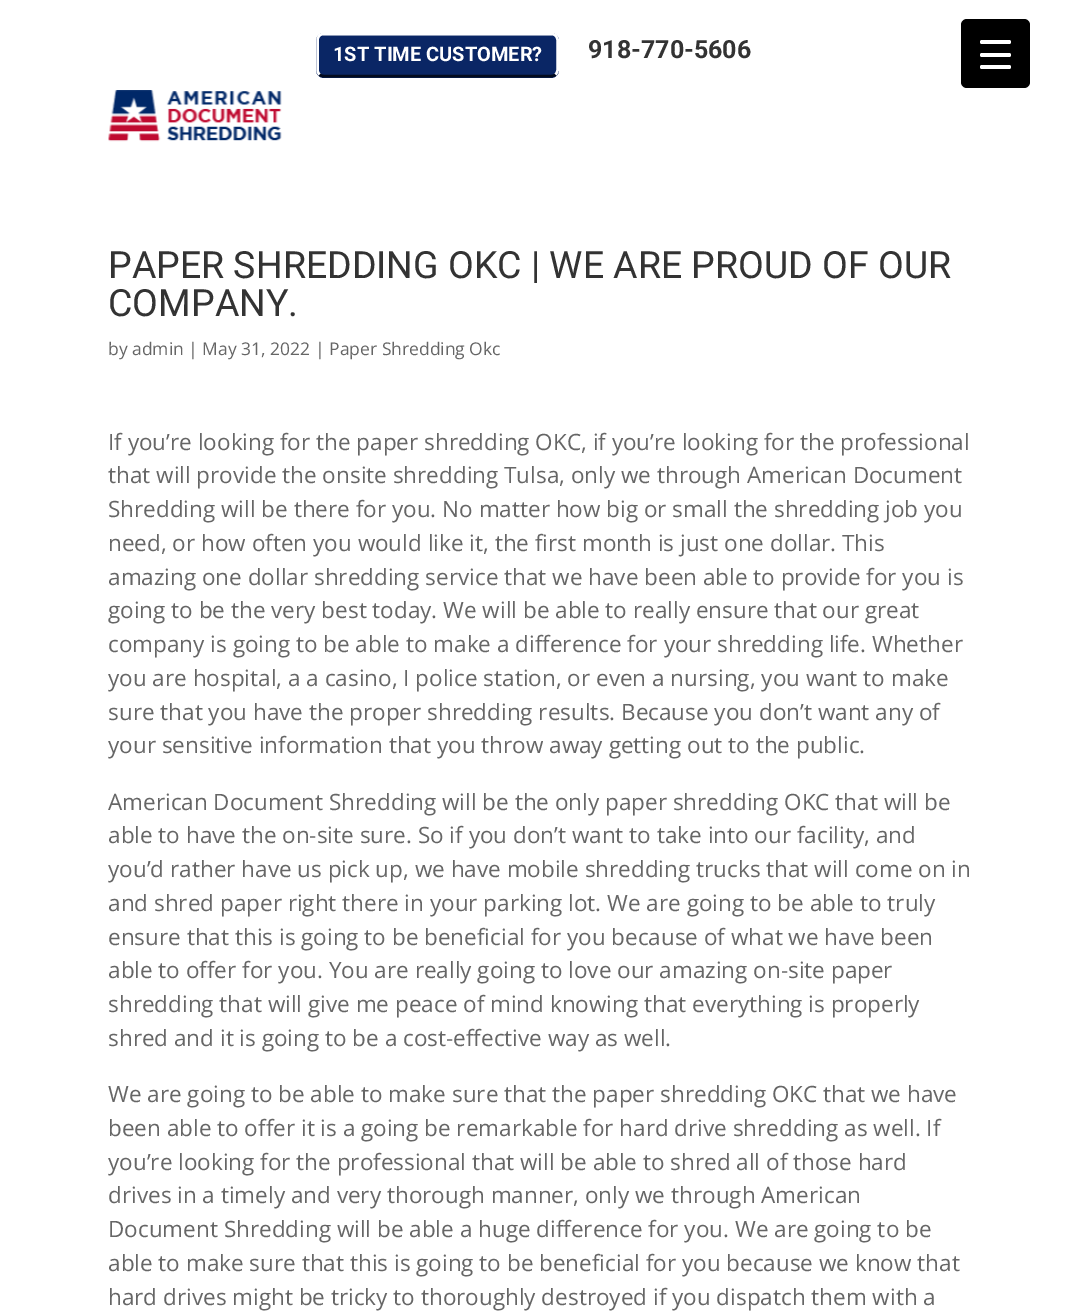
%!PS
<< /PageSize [1083 1316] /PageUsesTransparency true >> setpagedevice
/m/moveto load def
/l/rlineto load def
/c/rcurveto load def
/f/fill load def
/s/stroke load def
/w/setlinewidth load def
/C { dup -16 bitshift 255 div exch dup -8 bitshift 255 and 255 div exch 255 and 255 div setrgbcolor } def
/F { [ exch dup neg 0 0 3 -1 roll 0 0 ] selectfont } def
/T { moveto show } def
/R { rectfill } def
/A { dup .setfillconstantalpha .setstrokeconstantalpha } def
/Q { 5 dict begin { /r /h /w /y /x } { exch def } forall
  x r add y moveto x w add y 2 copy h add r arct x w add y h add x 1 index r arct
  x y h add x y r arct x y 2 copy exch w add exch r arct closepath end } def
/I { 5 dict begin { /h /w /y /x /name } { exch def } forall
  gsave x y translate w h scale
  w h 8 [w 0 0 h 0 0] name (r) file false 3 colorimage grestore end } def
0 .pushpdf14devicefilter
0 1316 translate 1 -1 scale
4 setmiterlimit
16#FFFFFF C
0 0 1083 1316 R
16#0A2665 C
316 33 243 45 8 Q f
0.7 A
16#000000 C
2.5 w
555.5 74.5 m -1 1 -2.5 1.5 -4.5 1.5 c -227 0 l -2 0 -3.5 -.5 -4.5 -1.5 c s
1 A
16#FFFFFF C
319.5 74.5 m -1.5 -1.5 -2 -3 -2 -4.5 c 0 -30 l 0 -1.5 .5 -3 2 -4.5 c 1 -1 2.5 -1.5 4.5 -1.5 c 227 0 l 2 0 3.5 .5 4.5 1.5 c 1.5 1.5 2 3 2 4.5 c 0 30 l 0 1.5 -.5 3 -2 4.5 c s
/Roboto-Bold 20 F
(1ST TIME CUSTOMER?) 333 61 T
/Roboto-Bold 25 F
16#333333 C
(918-770-5606) 588 58 T
(1.rgb) 108 90 174 52 I
/Roboto-Regular 37.5 F
(PAPER SHREDDING OKC | WE ARE PROUD OF OUR) 108 278 T
(COMPANY.) 108 316 T
/OpenSans-Regular 17.5 F
16#666666 C
(by admin | May 31, 2022 | Paper Shredding Okc) 108 355 T
/OpenSans-Regular 22.5 F
(If you’re looking for the paper shredding OKC, if you’re looking for the professional) 108 450 T
(that will provide the onsite shredding Tulsa, only we through American Document) 108 483 T
(Shredding will be there for you. No matter how big or small the shredding job you) 108 517 T
(need, or how often you would like it, the first month is just one dollar. This) 108 551 T
(amazing one dollar shredding service that we have been able to provide for you is) 108 585 T
(going to be the very best today. We will be able to really ensure that our great) 108 618 T
(company is going to be able to make a difference for your shredding life. Whether) 108 652 T
(you are hospital, a a casino, I police station, or even a nursing, you want to make) 108 686 T
(sure that you have the proper shredding results. Because you don’t want any of) 108 720 T
(your sensitive information that you throw away getting out to the public.) 108 753 T
(American Document Shredding will be the only paper shredding OKC that will be) 108 810 T
(able to have the on-site sure. So if you don’t want to take into our facility, and) 108 843 T
(you’d rather have us pick up, we have mobile shredding trucks that will come on in) 108 877 T
(and shred paper right there in your parking lot. We are going to be able to truly) 108 911 T
(ensure that this is going to be beneficial for you because of what we have been) 108 945 T
(able to offer for you. You are really going to love our amazing on-site paper) 108 978 T
(shredding that will give me peace of mind knowing that everything is properly) 108 1012 T
(shred and it is going to be a cost-effective way as well.) 108 1046 T
(We are going to be able to make sure that the paper shredding OKC that we have) 108 1102 T
(been able to offer it is a going be remarkable for hard drive shredding as well. If) 108 1136 T
(you’re looking for the professional that will be able to shred all of those hard) 108 1170 T
(drives in a timely and very thorough manner, only we through American) 108 1203 T
(Document Shredding will be able a huge difference for you. We are going to be) 108 1237 T
(able to make sure that this is going to be beneficial for you because we know that) 108 1271 T
(hard drives might be tricky to thoroughly destroyed if you dispatch them with a) 108 1305 T
16#000000 C
961 19 69 69 6 Q f
16#FFFFFF C
980 53 31 4 2 Q f
980 40 31 4 2 Q f
980 65 31 4 2 Q f
.poppdf14devicefilter showpage
